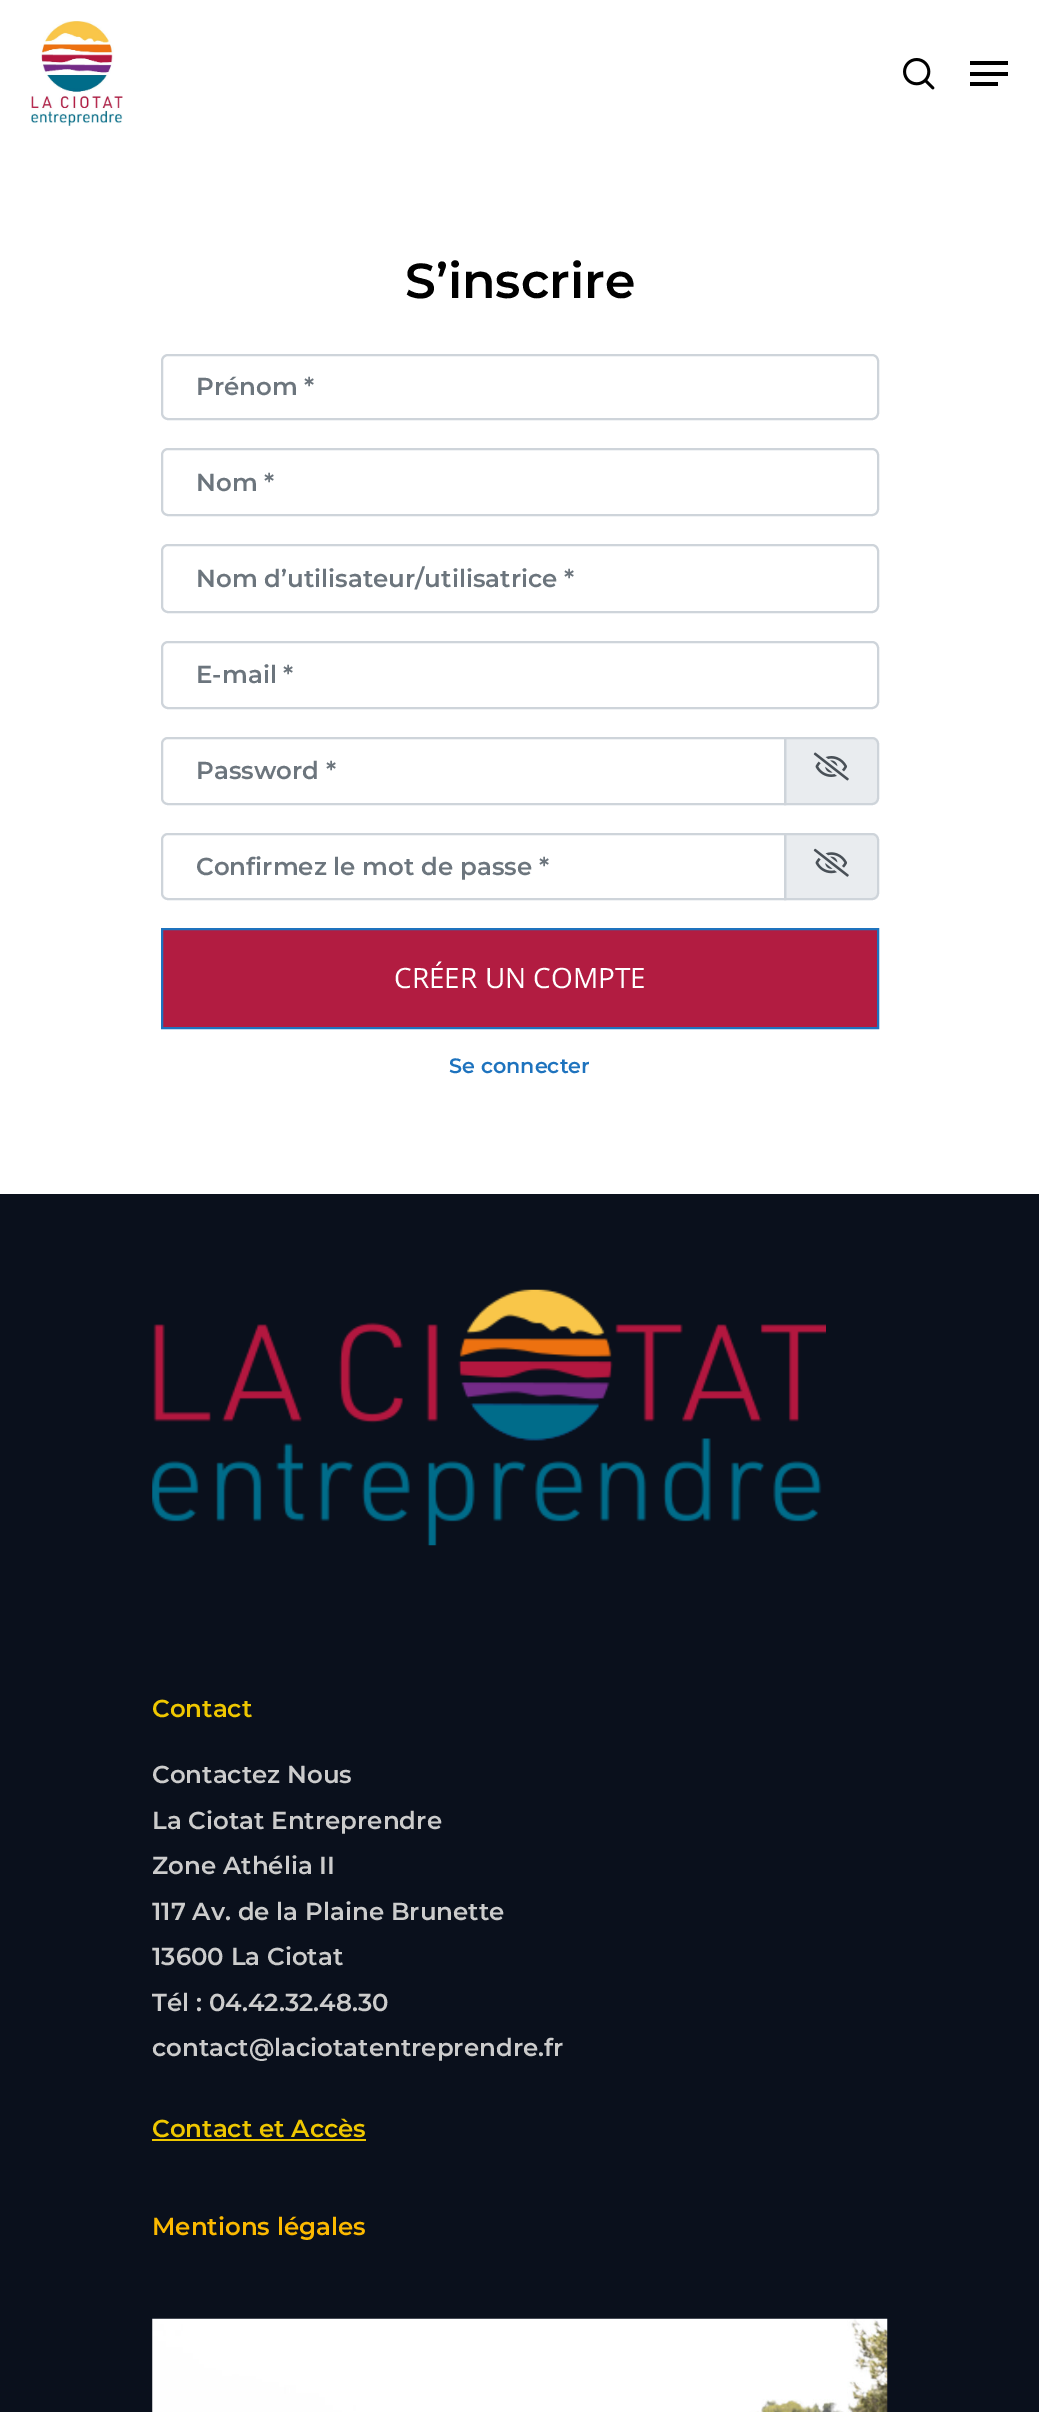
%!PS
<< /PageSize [1039 2412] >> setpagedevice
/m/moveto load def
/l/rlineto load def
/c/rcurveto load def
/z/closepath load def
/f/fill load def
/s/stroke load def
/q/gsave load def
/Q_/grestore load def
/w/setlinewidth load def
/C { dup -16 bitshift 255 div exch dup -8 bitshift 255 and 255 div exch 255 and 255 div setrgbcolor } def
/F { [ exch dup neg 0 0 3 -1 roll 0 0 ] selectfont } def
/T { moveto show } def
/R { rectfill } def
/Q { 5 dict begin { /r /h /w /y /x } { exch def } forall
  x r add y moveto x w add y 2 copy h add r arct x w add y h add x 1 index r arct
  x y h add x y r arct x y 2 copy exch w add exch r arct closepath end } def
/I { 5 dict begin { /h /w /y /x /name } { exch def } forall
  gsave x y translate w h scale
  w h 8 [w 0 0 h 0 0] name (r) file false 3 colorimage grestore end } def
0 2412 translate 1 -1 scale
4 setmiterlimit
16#FFFFFF C
0 0 1039 2412 R
(1.rgb) 31 21 92 105 I
(2.rgb) 903 58 32 32 I
16#000000 C
970 61 38 4 R
970 82 28 4 R
970 72 38 4 R
/Montserrat-Thin 49 F
(S’inscrire) 405 298 T
16#CED4DA C
2 w
162 355 716 64 6 Q s
/Montserrat-Thin 24.5 F
16#6C757D C
(Prénom *) 196 395 T
16#CED4DA C
162 449 716 66 6 Q s
16#6C757D C
(Nom *) 196 491 T
16#CED4DA C
162 545 716 67 6 Q s
16#6C757D C
(Nom d’utilisateur/utilisatrice *) 196 587 T
16#CED4DA C
162 642 716 66 6 Q s
16#6C757D C
(E-mail *) 196 683 T
16#E9ECEF C
785 738 m 87 0 l 3.5 0 6 2.5 6 6 c 0 54 l 0 3.5 -2.5 6 -6 6 c -87 0 l z q f Q_
16#CED4DA C
s
168 738 m 617 0 l 0 66 l -617 0 l -3.5 0 -6 -2.5 -6 -6 c 0 -54 l 0 -3.5 2.5 -6 6 -6 c z s
16#6C757D C
(Password *) 196 779 T
(3.rgb) 813 752 36 29 I
16#E9ECEF C
785 834 m 87 0 l 3.5 0 6 2.5 6 6 c 0 53 l 0 3.5 -2.5 6 -6 6 c -87 0 l z q f Q_
16#CED4DA C
s
168 834 m 617 0 l 0 65 l -617 0 l -3.5 0 -6 -2.5 -6 -6 c 0 -53 l 0 -3.5 2.5 -6 6 -6 c z s
16#6C757D C
(Confirmez le mot de passe *) 196 875 T
(4.rgb) 813 848 36 29 I
16#B21C41 C
162 929 m 716 0 l 0 99 l -716 0 l z q f Q_
16#1E73BE C
s
/OpenSans-Regular 28 F
16#FFFFFF C
(CRÉER UN COMPTE) 394 988 T
/Montserrat-Thin 20.75 F
16#1E73BE C
(Se connecter) 449 1073 T
16#0A101C C
0 1194 1039 1218 R
(5.rgb) 152 1289 674 257 I
/Montserrat-Thin 24.5 F
16#EFC700 C
(Contact) 152 1717 T
16#CCCCCC C
(Contactez Nous) 152 1783 T
(La Ciotat Entreprendre) 152 1829 T
(Zone Athélia II) 152 1874 T
(117 Av. de la Plaine Brunette) 152 1920 T
(13600 La Ciotat) 152 1965 T
(Tél : 04.42.32.48.30) 152 2011 T
(contact@laciotatentreprendre.fr) 152 2056 T
16#EFC700 C
(Contact et Accès) 152 2137 T
152 2139 214 2 R
16#FCB900 C
(Mentions légales) 152 2235 T
(6.rgb) 152 2318 736 94 I
showpage
